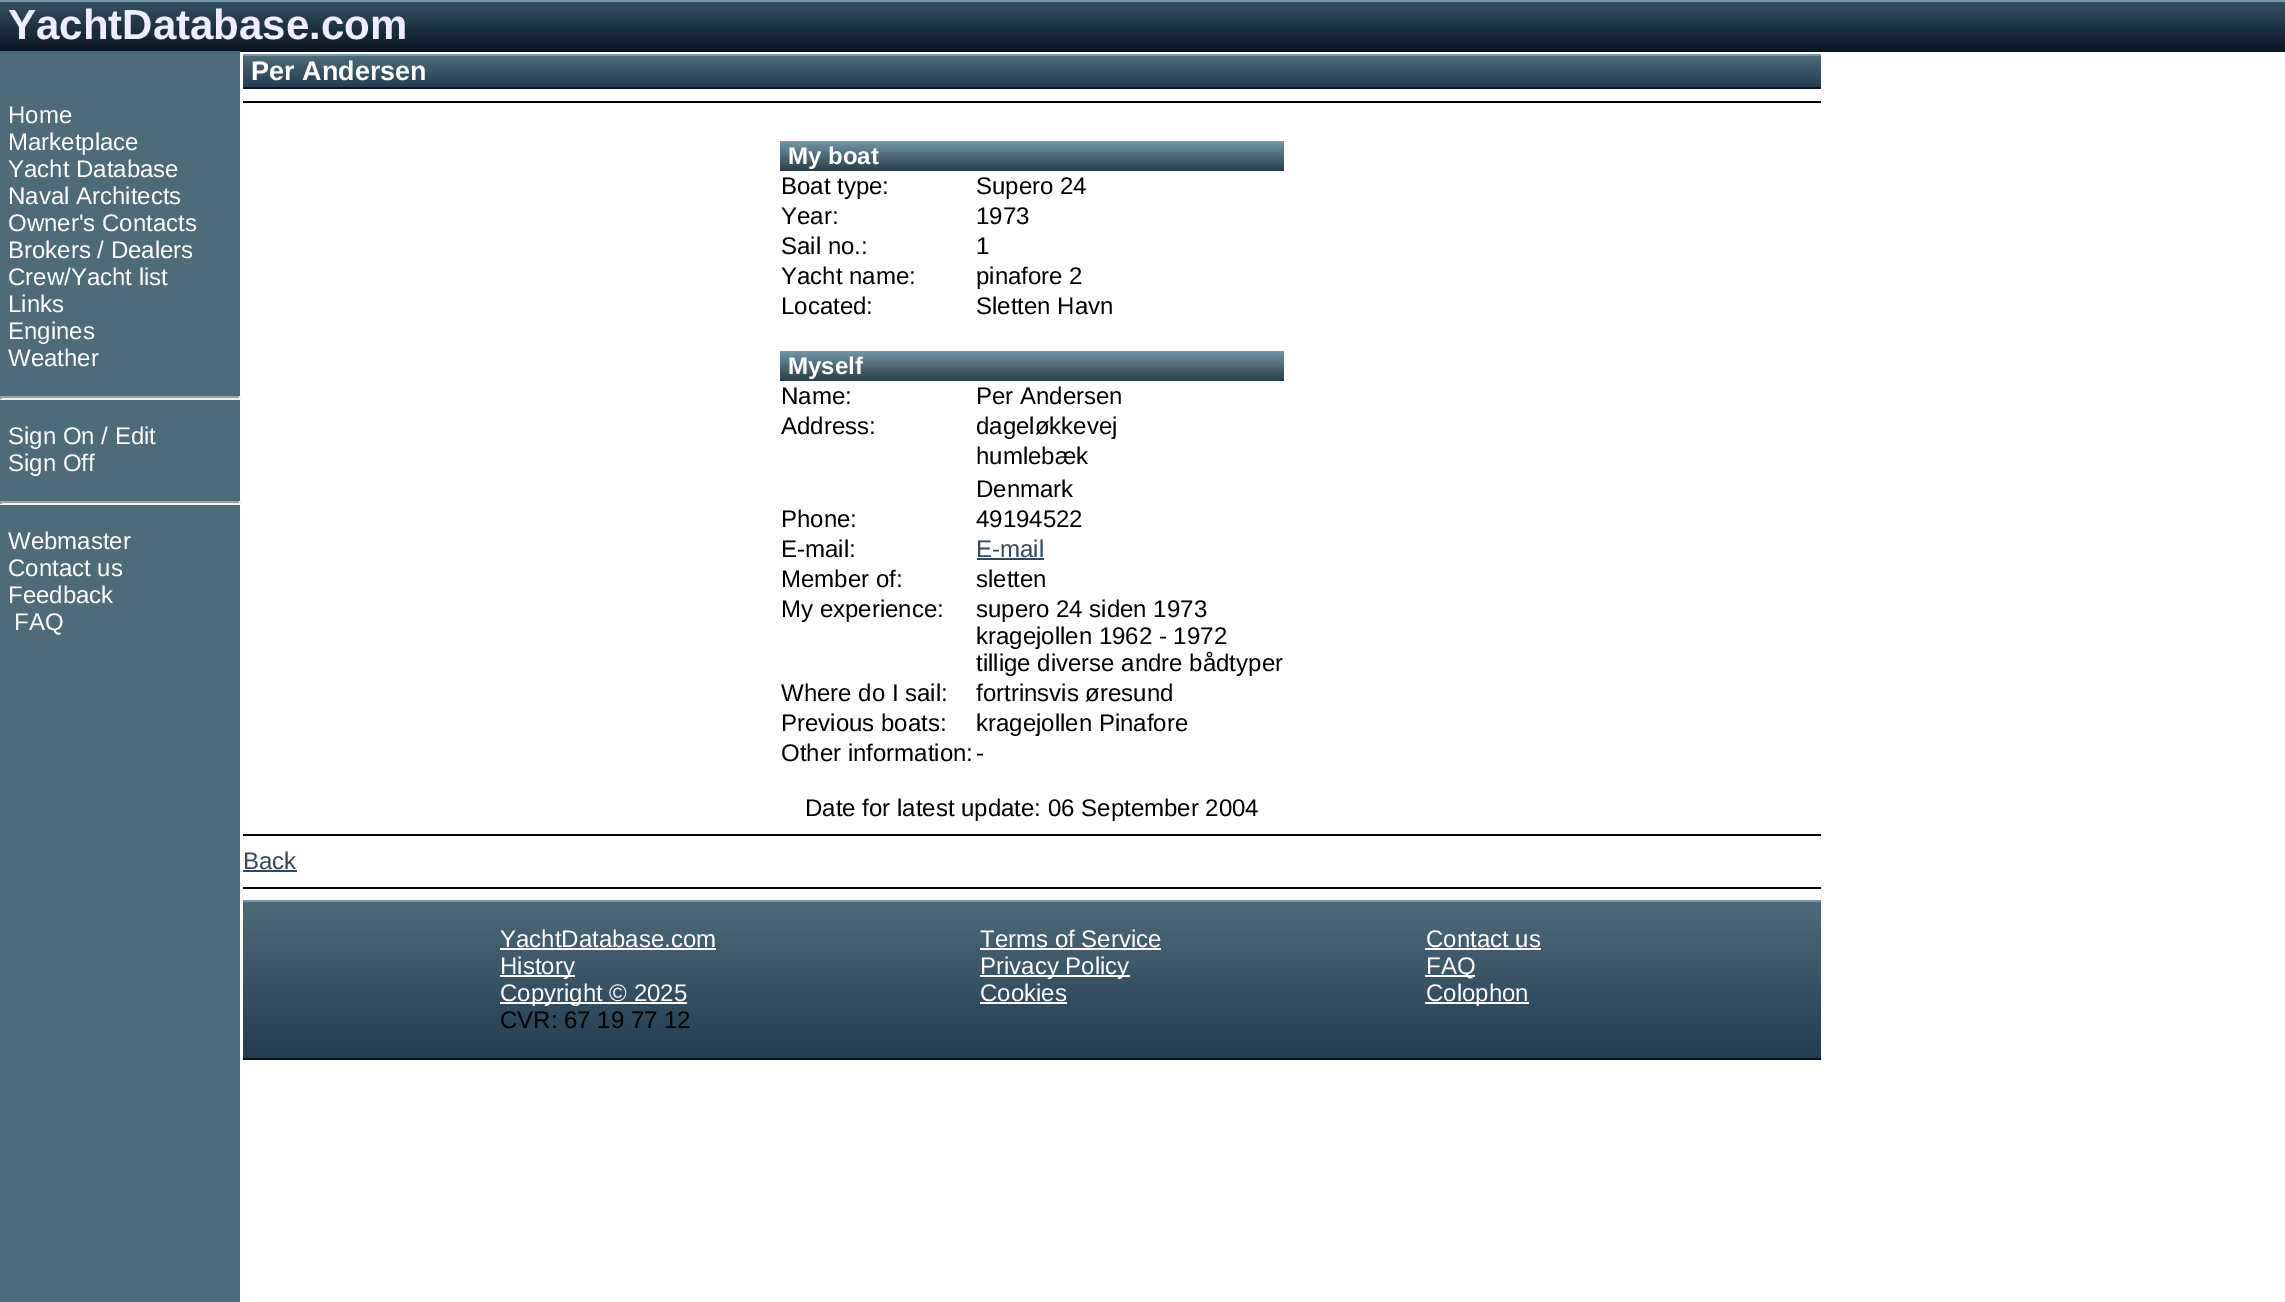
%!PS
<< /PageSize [2285 1302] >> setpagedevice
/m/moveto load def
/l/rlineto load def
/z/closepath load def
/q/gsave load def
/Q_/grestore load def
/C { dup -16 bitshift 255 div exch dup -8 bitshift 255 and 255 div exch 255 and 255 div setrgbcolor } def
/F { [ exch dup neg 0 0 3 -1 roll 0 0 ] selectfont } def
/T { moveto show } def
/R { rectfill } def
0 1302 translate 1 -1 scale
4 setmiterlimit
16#FFFFFF C
0 0 2285 1302 R
q 0 2 m 2285 0 l 0 48 l -2285 0 l z clip newpath
<< /ShadingType 2 /ColorSpace /DeviceRGB /Coords [0 50 0 1.5] /Extend [true true] /Function << /FunctionType 2 /Domain [0 1] /C0 [.039 .09 .141] /C1 [.212 .322 .388] /N 1 >> >> shfill Q_
16#7598A8 C
0 0 2285 2 R
16#071321 C
0 50 2285 2 R
/LiberationSans-Bold 42 F
16#EEEEFF C
(YachtDatabase.com) 8 39 T
16#4E6B79 C
0 51 240 1251 R
/LiberationSans-Regular 24 F
16#FFFFFF C
(Home) 8 123 T
(Marketplace) 8 150 T
(Yacht Database) 8 177 T
(Naval Architects) 8 204 T
(Owner's Contacts) 8 231 T
(Brokers / Dealers) 8 258 T
(Crew/Yacht list) 8 285 T
(Links) 8 312 T
(Engines) 8 339 T
(Weather) 8 366 T
16#9F9F9F C
0 396 240 2 R
16#EEEEEE C
239 396 2 3 R
0 398 240 2 R
16#9F9F9F C
0 396 2 3 R
16#FFFFFF C
(Sign On / Edit) 8 444 T
(Sign Off) 8 471 T
16#9F9F9F C
0 501 240 2 R
16#EEEEEE C
239 501 2 3 R
0 503 240 2 R
16#9F9F9F C
0 501 2 3 R
16#FFFFFF C
(Webmaster) 8 549 T
(Contact us) 8 576 T
(Feedback) 8 603 T
(FAQ) 14 630 T
q 243 56 m 1578 0 l 0 31 l -1578 0 l z clip newpath
<< /ShadingType 2 /ColorSpace /DeviceRGB /Coords [243 87 243 56] /Extend [true true] /Function << /FunctionType 2 /Domain [0 1] /C0 [.133 .235 .318] /C1 [.306 .42 .475] /N 1 >> >> shfill Q_
16#7598A8 C
243 54 1578 2 R
16#071321 C
243 87 1578 2 R
/LiberationSans-Bold 27 F
16#FFFFFF C
(Per Andersen) 251 80 T
16#000000 C
243 101 1578 2 R
q 780 141 m 504 0 l 0 30 l -504 0 l z clip newpath
<< /ShadingType 2 /ColorSpace /DeviceRGB /Coords [780 171 780 141] /Extend [true true] /Function << /FunctionType 2 /Domain [0 1] /C0 [.157 .243 .278] /C1 [.443 .592 .659] /N 1 >> >> shfill Q_
/LiberationSans-Bold 24 F
16#FFFFFF C
(My boat) 788 164 T
/LiberationSans-Regular 24 F
16#000000 C
(Boat type:) 781 194 T
(Supero 24) 976 194 T
(Year:) 781 224 T
(1973) 976 224 T
(Sail no.:) 781 254 T
(1) 976 254 T
(Yacht name:) 781 284 T
(pinafore 2) 976 284 T
(Located:) 781 314 T
(Sletten Havn) 976 314 T
q 780 351 m 504 0 l 0 30 l -504 0 l z clip newpath
<< /ShadingType 2 /ColorSpace /DeviceRGB /Coords [780 381 780 351] /Extend [true true] /Function << /FunctionType 2 /Domain [0 1] /C0 [.157 .243 .278] /C1 [.443 .592 .659] /N 1 >> >> shfill Q_
/LiberationSans-Bold 24 F
16#FFFFFF C
(Myself) 788 374 T
/LiberationSans-Regular 24 F
16#000000 C
(Name:) 781 404 T
(Per Andersen) 976 404 T
(Address:) 781 434 T
(dageløkkevej) 976 434 T
(humlebæk) 976 464 T
(Denmark) 976 497 T
(Phone:) 781 527 T
(49194522) 976 527 T
(E-mail:) 781 557 T
16#33495D C
(E-mail) 976 557 T
977 558 67 2 R
16#000000 C
(Member of:) 781 587 T
(sletten) 976 587 T
(My experience:) 781 617 T
(supero 24 siden 1973) 976 617 T
(kragejollen 1962 - 1972) 976 644 T
(tillige diverse andre bådtyper) 976 671 T
(Where do I sail:) 781 701 T
(fortrinsvis øresund) 976 701 T
(Previous boats:) 781 731 T
(kragejollen Pinafore) 976 731 T
(Other information:) 781 761 T
(-) 976 761 T
(Date for latest update: 06 September 2004) 805 816 T
243 834 1578 2 R
16#33495D C
(Back) 243 869 T
243 870 54 2 R
16#000000 C
243 887 1578 2 R
q 243 902 m 1578 0 l 0 156 l -1578 0 l z clip newpath
<< /ShadingType 2 /ColorSpace /DeviceRGB /Coords [243 1058 243 902] /Extend [true true] /Function << /FunctionType 2 /Domain [0 1] /C0 [.133 .235 .318] /C1 [.306 .42 .475] /N 1 >> >> shfill Q_
16#7598A8 C
243 900 1578 2 R
16#071321 C
243 1058 1578 2 R
16#FFFFFF C
(YachtDatabase.com) 500 947 T
500 948 216 2 R
500 975 75 2 R
(History) 500 974 T
500 1002 187 2 R
(Copyright © 2025) 500 1001 T
16#000000 C
(CVR: 67 19 77 12) 500 1028 T
16#FFFFFF C
(Terms of Service) 980 947 T
980 948 181 2 R
980 975 150 2 R
(Privacy Policy) 980 974 T
(Cookies) 980 1001 T
980 1002 87 2 R
(Contact us) 1426 947 T
1425 948 116 2 R
1425 975 50 2 R
(FAQ) 1426 974 T
1425 1002 104 2 R
(Colophon) 1426 1001 T
showpage
